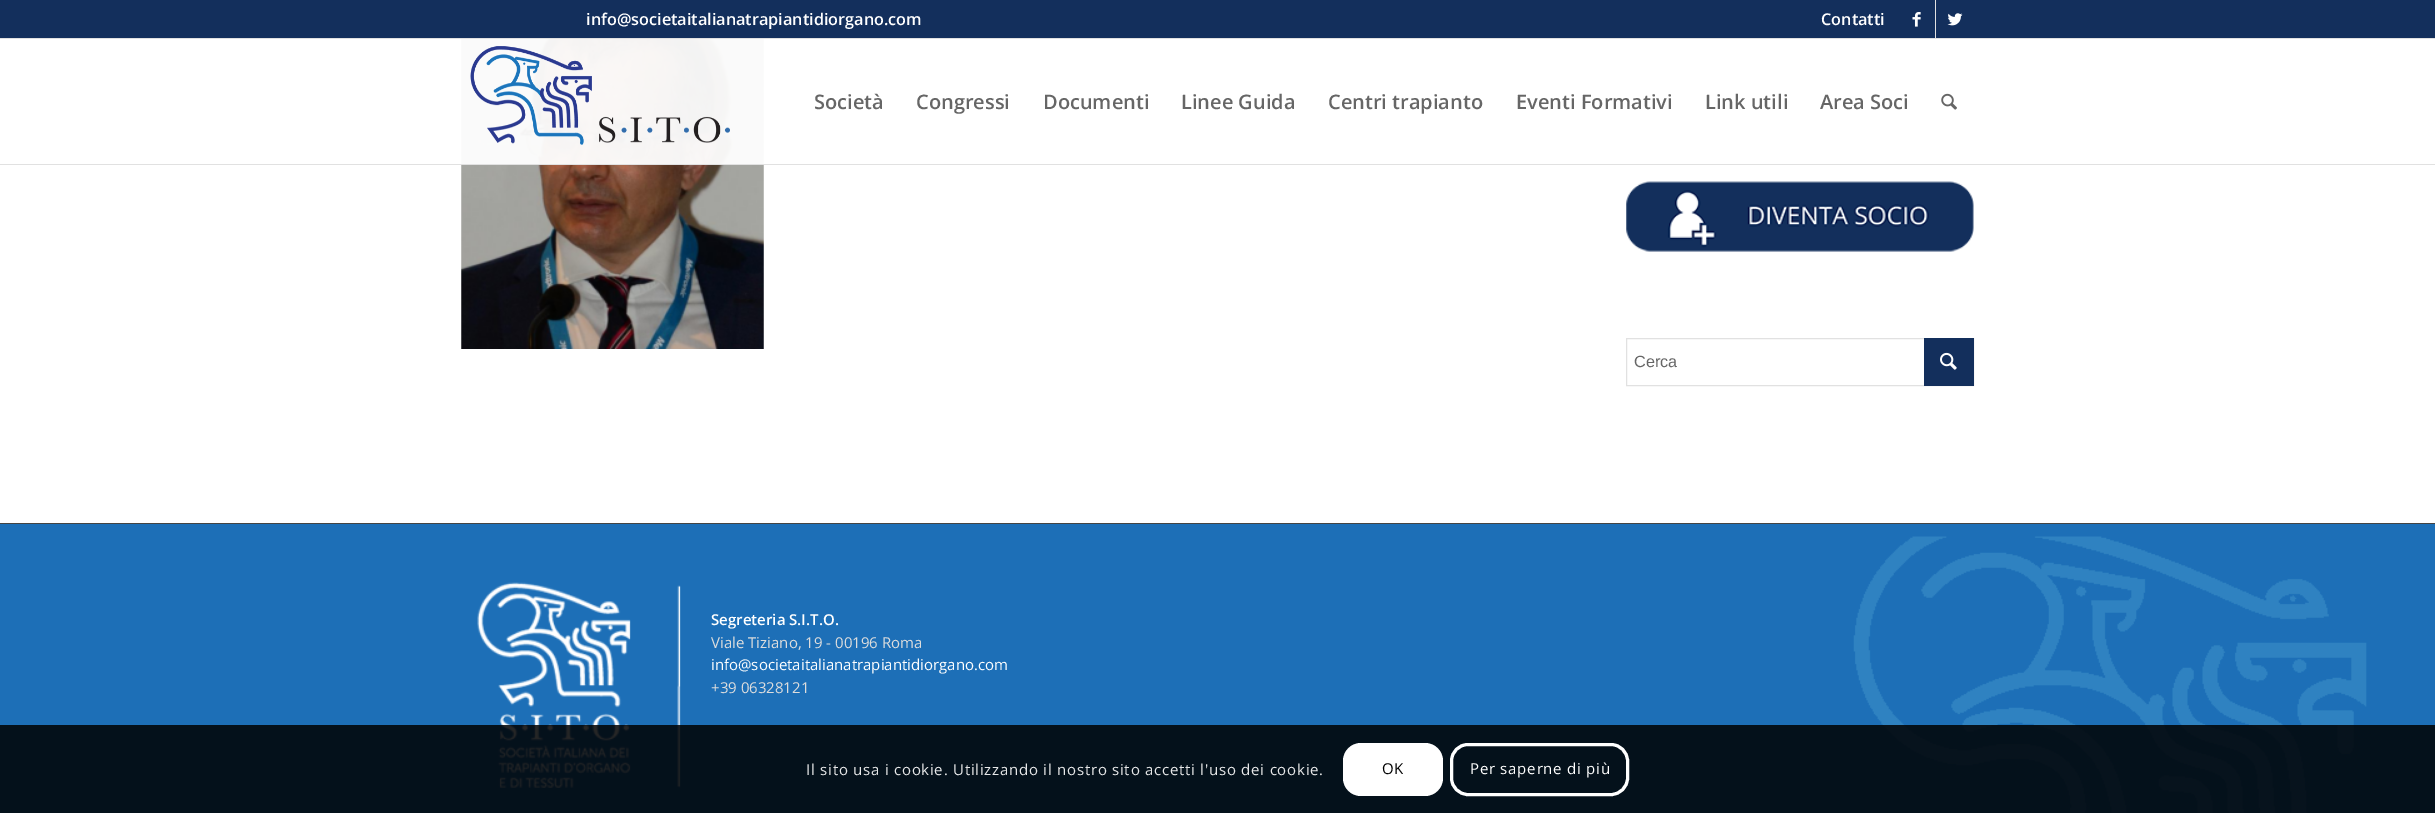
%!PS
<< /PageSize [2435 813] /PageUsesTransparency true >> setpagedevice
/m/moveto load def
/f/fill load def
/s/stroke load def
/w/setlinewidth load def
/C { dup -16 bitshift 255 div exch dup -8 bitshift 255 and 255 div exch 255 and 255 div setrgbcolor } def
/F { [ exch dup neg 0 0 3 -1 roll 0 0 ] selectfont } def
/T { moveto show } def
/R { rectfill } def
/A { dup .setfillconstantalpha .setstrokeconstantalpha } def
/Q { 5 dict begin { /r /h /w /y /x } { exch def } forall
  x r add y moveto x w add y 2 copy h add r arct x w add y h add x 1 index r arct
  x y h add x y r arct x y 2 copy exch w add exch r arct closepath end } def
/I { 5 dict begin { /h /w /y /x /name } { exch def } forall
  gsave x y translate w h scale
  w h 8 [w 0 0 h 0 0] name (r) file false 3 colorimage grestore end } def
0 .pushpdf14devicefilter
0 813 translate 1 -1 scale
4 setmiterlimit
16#FFFFFF C
0 0 2435 813 R
16#132F5C C
0 0 2435 38 R
16#E1E1E1 C
0 38 2435 1 R
/OpenSans-SemiBold 16.25 F
16#FFFFFF C
(info@societaitalianatrapiantidiorgano.com) 586 25 T
(Contatti) 1821 25 T
16#E1E1E1 C
1935 0 1 38 R
(1.rgb) 1912 12 9 15 I
(2.rgb) 1947 13 16 13 I
(5.rgb) 461 39 303 310 I
0.95 A
16#FFFFFF C
461 39 303 125 R
1 A
16#E1E1E1 C
0 164 2435 1 R
(3.rgb) 470 46 260 99 I
/OpenSans-SemiBold 20 F
16#666666 C
(Società) 814 109 T
(Congressi) 916 109 T
(Documenti) 1043 109 T
(Linee Guida) 1181 109 T
(Centri trapianto) 1328 109 T
(Eventi Formativi) 1516 109 T
(Link utili) 1705 109 T
(Area Soci) 1820 109 T
(4.rgb) 1941 93 16 17 I
(6.rgb) 1626 181 348 71 I
16#E1E1E1 C
1626.5 338.5 347 47 rectstroke
/LiberationSans-Regular 16.25 F
16#666666 C
(Cerca) 1634 367 T
16#132F5C C
1924 338 50 48 R
(7.rgb) 1940 352 17 18 I
16#1D6FB7 C
0 524 2435 289 R
(8.rgb) 1853 536 514 277 I
16#444444 C
0 523 2435 1 R
(9.rgb) 477 582 204 206 I
/OpenSans-SemiBold 15 F
16#FFFFFF C
(Segreteria S.I.T.O.) 711 625 T
/OpenSans-Regular 15 F
16#DDDDDD C
(Viale Tiziano, 19 - 00196 Roma) 711 648 T
16#FFFFFF C
(info@societaitalianatrapiantidiorgano.com) 711 670 T
16#DDDDDD C
(+39 06328121) 711 693 T
0.85 A
16#000000 C
0 725 2435 88 R
1 A
16#E6E7E8 C
806 775 m .75 0 (Il sito usa i cookie. Utilizzando il nostro sito accetti l'uso dei cookie.) ashow
16#FFFFFF C
1343 743 100 53 18 Q f
16#000000 C
1382 774 m .75 0 (OK) ashow
16#FFFFFF C
3 w
1451.5 744.5 176 50 16.5 Q s
1470 774 m .75 0 (Per saperne di più) ashow
.poppdf14devicefilter showpage
